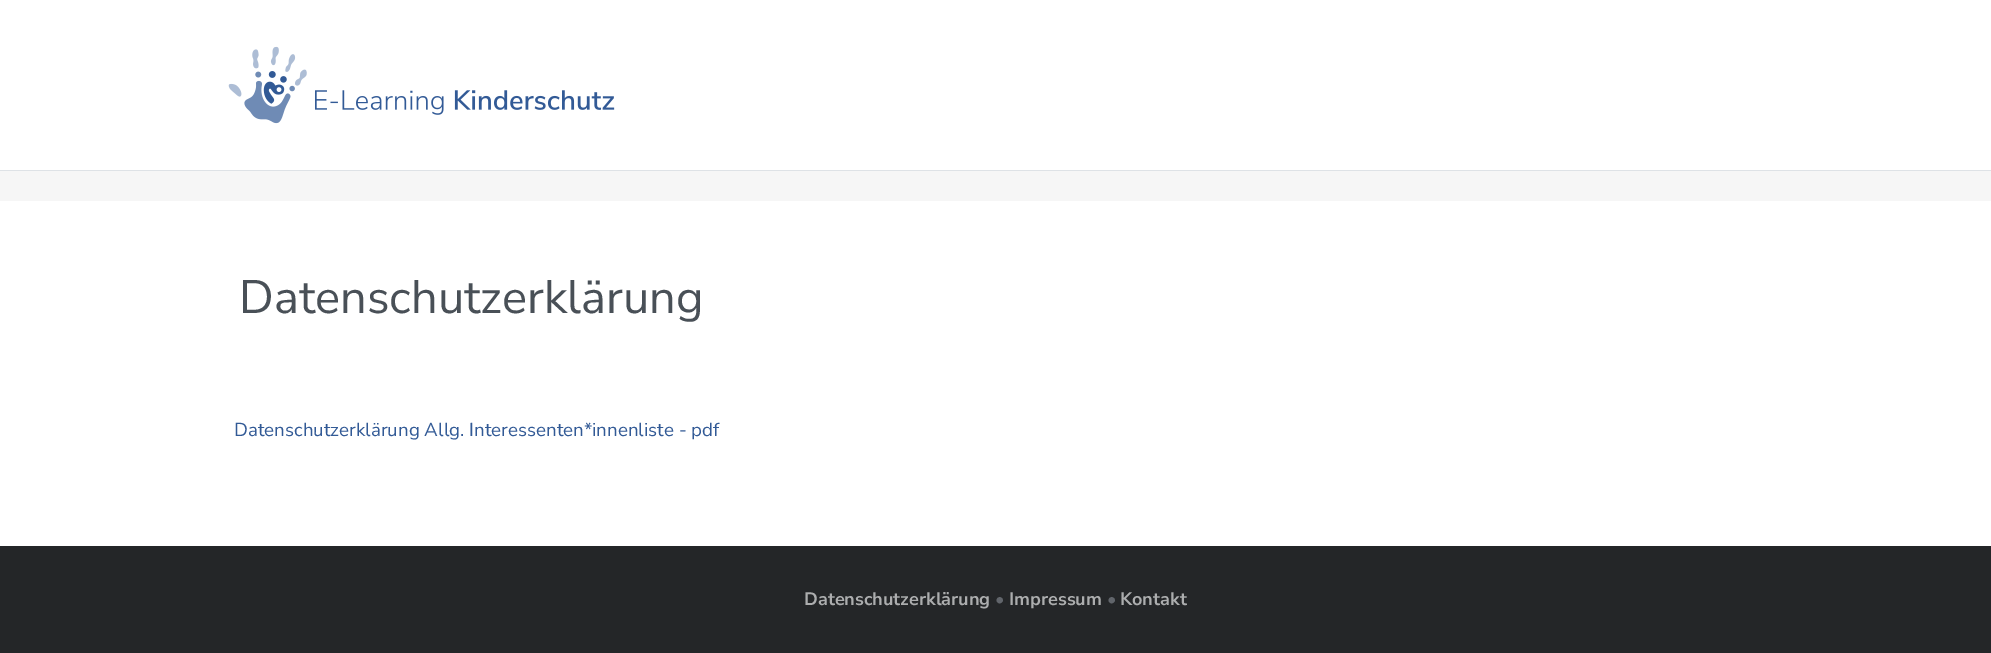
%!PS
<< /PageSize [1991 653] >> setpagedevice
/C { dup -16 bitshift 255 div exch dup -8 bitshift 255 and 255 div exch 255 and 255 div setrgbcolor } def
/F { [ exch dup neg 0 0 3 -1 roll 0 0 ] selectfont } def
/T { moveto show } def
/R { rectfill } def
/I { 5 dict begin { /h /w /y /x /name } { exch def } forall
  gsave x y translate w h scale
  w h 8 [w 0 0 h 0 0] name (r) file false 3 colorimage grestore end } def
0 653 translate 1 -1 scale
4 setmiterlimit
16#FFFFFF C
0 0 1991 653 R
16#DEE2E6 C
0 170 1991 1 R
(1.rgb) 228 46 387 78 I
16#F6F6F6 C
0 171 1991 30 R
/NunitoSans-Regular 46.9 F
16#495057 C
(Datenschutzerklärung) 239 313 T
/NunitoSans-Regular 18.75 F
16#325A96 C
(Datenschutzerklärung Allg. Interessenten*innenliste - pdf) 234 436 T
16#242628 C
0 546 1991 107 R
/NunitoSans-Bold 18.1 F
16#ACADAE C
(Datenschutzerklärung) 804 605 T
/NunitoSans-Regular 18.1 F
16#61656B C
(•) 995 605 T
/NunitoSans-Bold 18.1 F
16#ACADAE C
(Impressum) 1009 605 T
/NunitoSans-Regular 18.1 F
16#61656B C
(•) 1107 605 T
/NunitoSans-Bold 18.1 F
16#ACADAE C
(Kontakt) 1120 605 T
showpage
